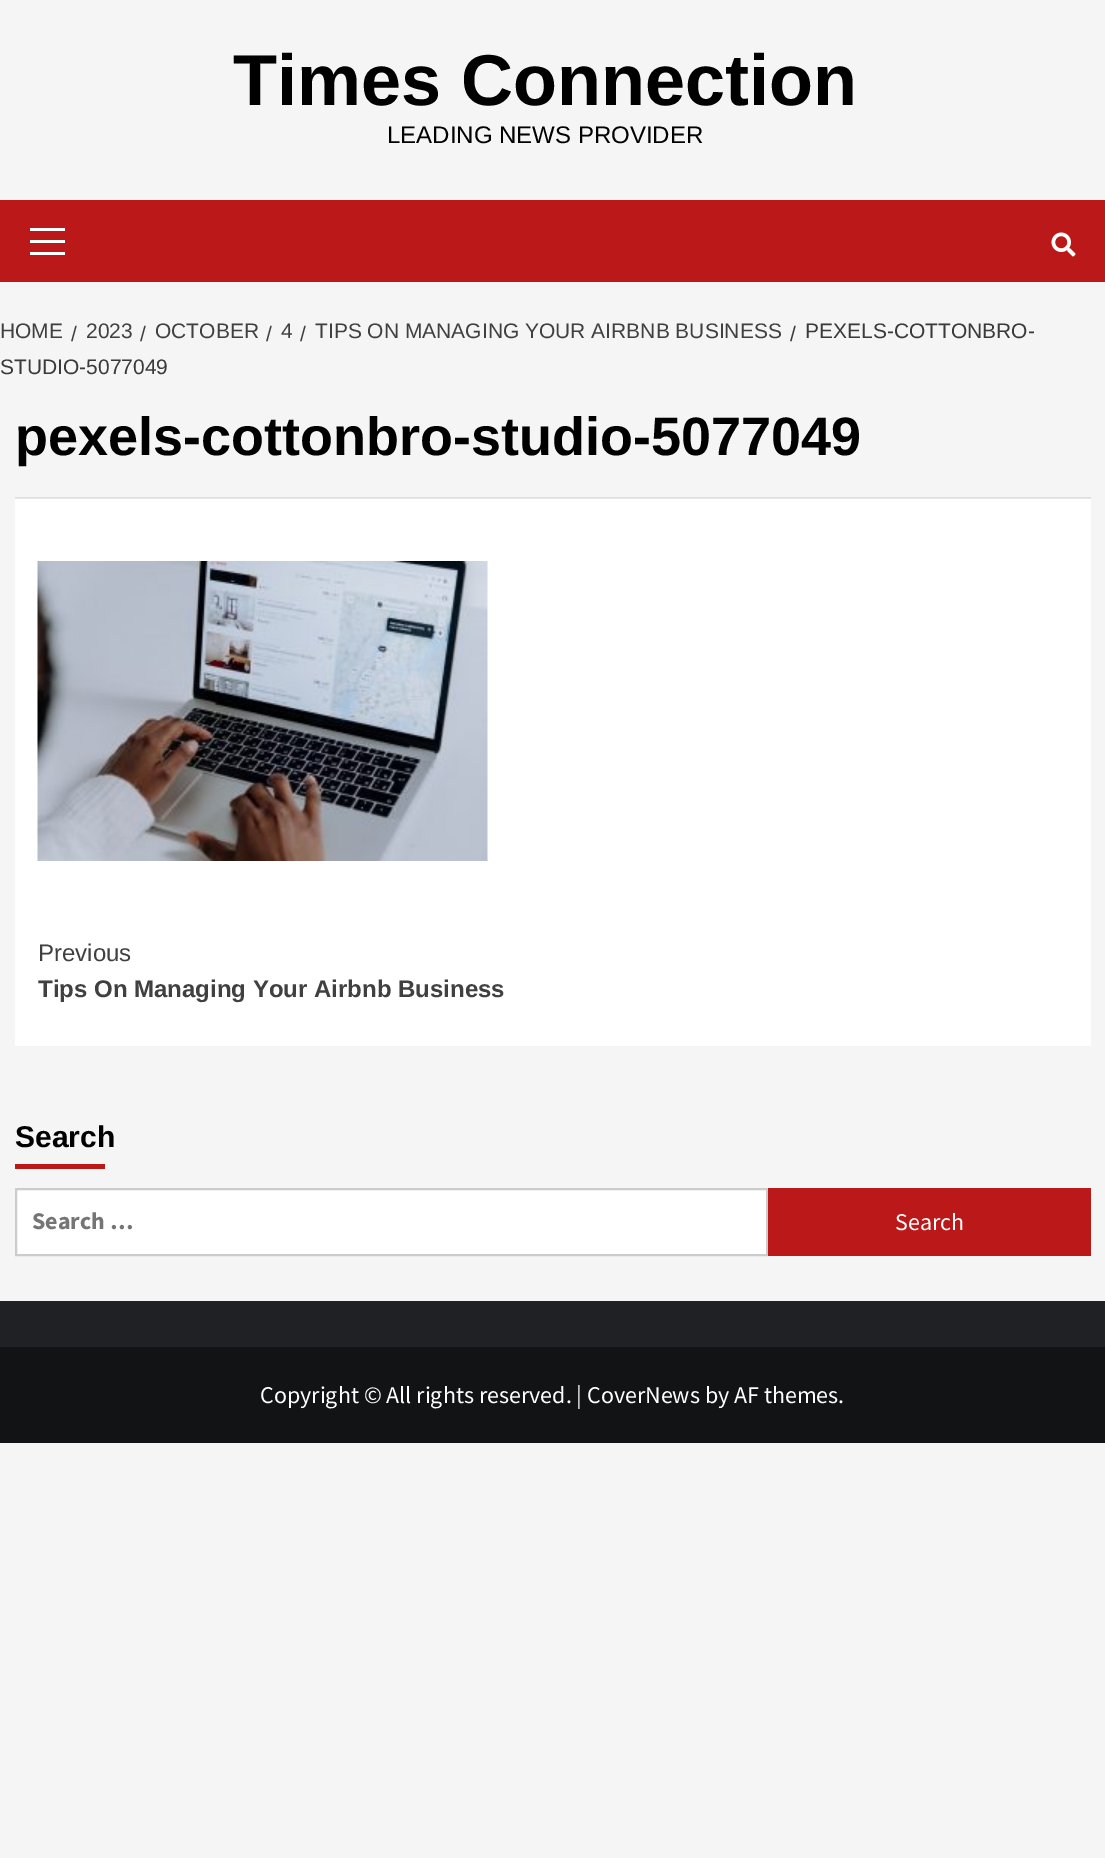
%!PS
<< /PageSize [1105 1858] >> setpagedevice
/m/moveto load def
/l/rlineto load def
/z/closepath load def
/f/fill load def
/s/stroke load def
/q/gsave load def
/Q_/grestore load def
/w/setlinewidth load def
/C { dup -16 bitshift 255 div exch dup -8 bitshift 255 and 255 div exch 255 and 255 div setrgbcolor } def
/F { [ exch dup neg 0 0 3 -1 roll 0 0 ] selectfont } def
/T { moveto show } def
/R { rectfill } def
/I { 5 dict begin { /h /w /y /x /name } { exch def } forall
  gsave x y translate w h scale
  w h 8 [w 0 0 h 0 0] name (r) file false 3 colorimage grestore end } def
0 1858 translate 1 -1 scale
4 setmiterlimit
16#F5F5F5 C
0 0 1105 1858 R
/LiberationSans-Bold 72 F
16#000000 C
(Times Connection) 233 105 T
/LiberationSans-Regular 24 F
(LEADING NEWS PROVIDER) 387 143 T
16#BB1919 C
0 200 1105 82 R
16#FFFFFF C
30 240 35 3 R
30 228 35 3 R
30 252 35 3 R
(1.rgb) 1051 232 25 25 I
/LiberationSans-Regular 21 F
16#3A3A3A C
(/) 790 341 T
(PEXELS-COTTONBRO-) 805 338 T
(STUDIO-5077049) 0 374 T
16#404040 C
(HOME) 0 338 T
(/) 71 341 T
(2023) 86 338 T
(/) 140 341 T
(OCTOBER) 155 338 T
(/) 266 341 T
(4) 281 338 T
(/) 300 341 T
(TIPS ON MANAGING YOUR AIRBNB BUSINESS) 315 338 T
16#FFFFFF C
15 499 1076 547 R
16#E6E6E6 C
15 498 1076 1 R
16#DEDEDE C
15 497 1076 1 R
/LiberationSans-Bold 54 F
16#000000 C
(pexels-cottonbro-studio-5077049) 15 455 T
(2.rgb) 37 561 451 300 I
/LiberationSans-Regular 24 F
16#404040 C
(Previous) 38 961 T
q
38 921 1030 102 rectclip
/LiberationSans-Bold 24 F
(Tips On Managing Your Airbnb Business) 38 997 T
Q_
/LiberationSans-Bold 30 F
16#000000 C
(Search) 15 1147 T
16#BB1919 C
15 1164 90 5 R
16#FFFFFF C
16 1189 m 751 0 l 0 66 l -751 0 l z q f Q_
16#CCCCCC C
2 w
s
/SourceSansPro-Bold 24 F
16#757575 C
(Search …) 32 1229 T
16#BB1919 C
768 1188 323 68 R
/SourceSansPro-Regular 24 F
16#FFFFFF C
(Search) 895 1230 T
16#1F2125 C
0 1301 1105 46 R
16#121314 C
0 1347 1105 96 R
16#FFFFFF C
(Copyright © All rights reserved. | CoverNews by AF themes.) 260 1403 T
showpage
